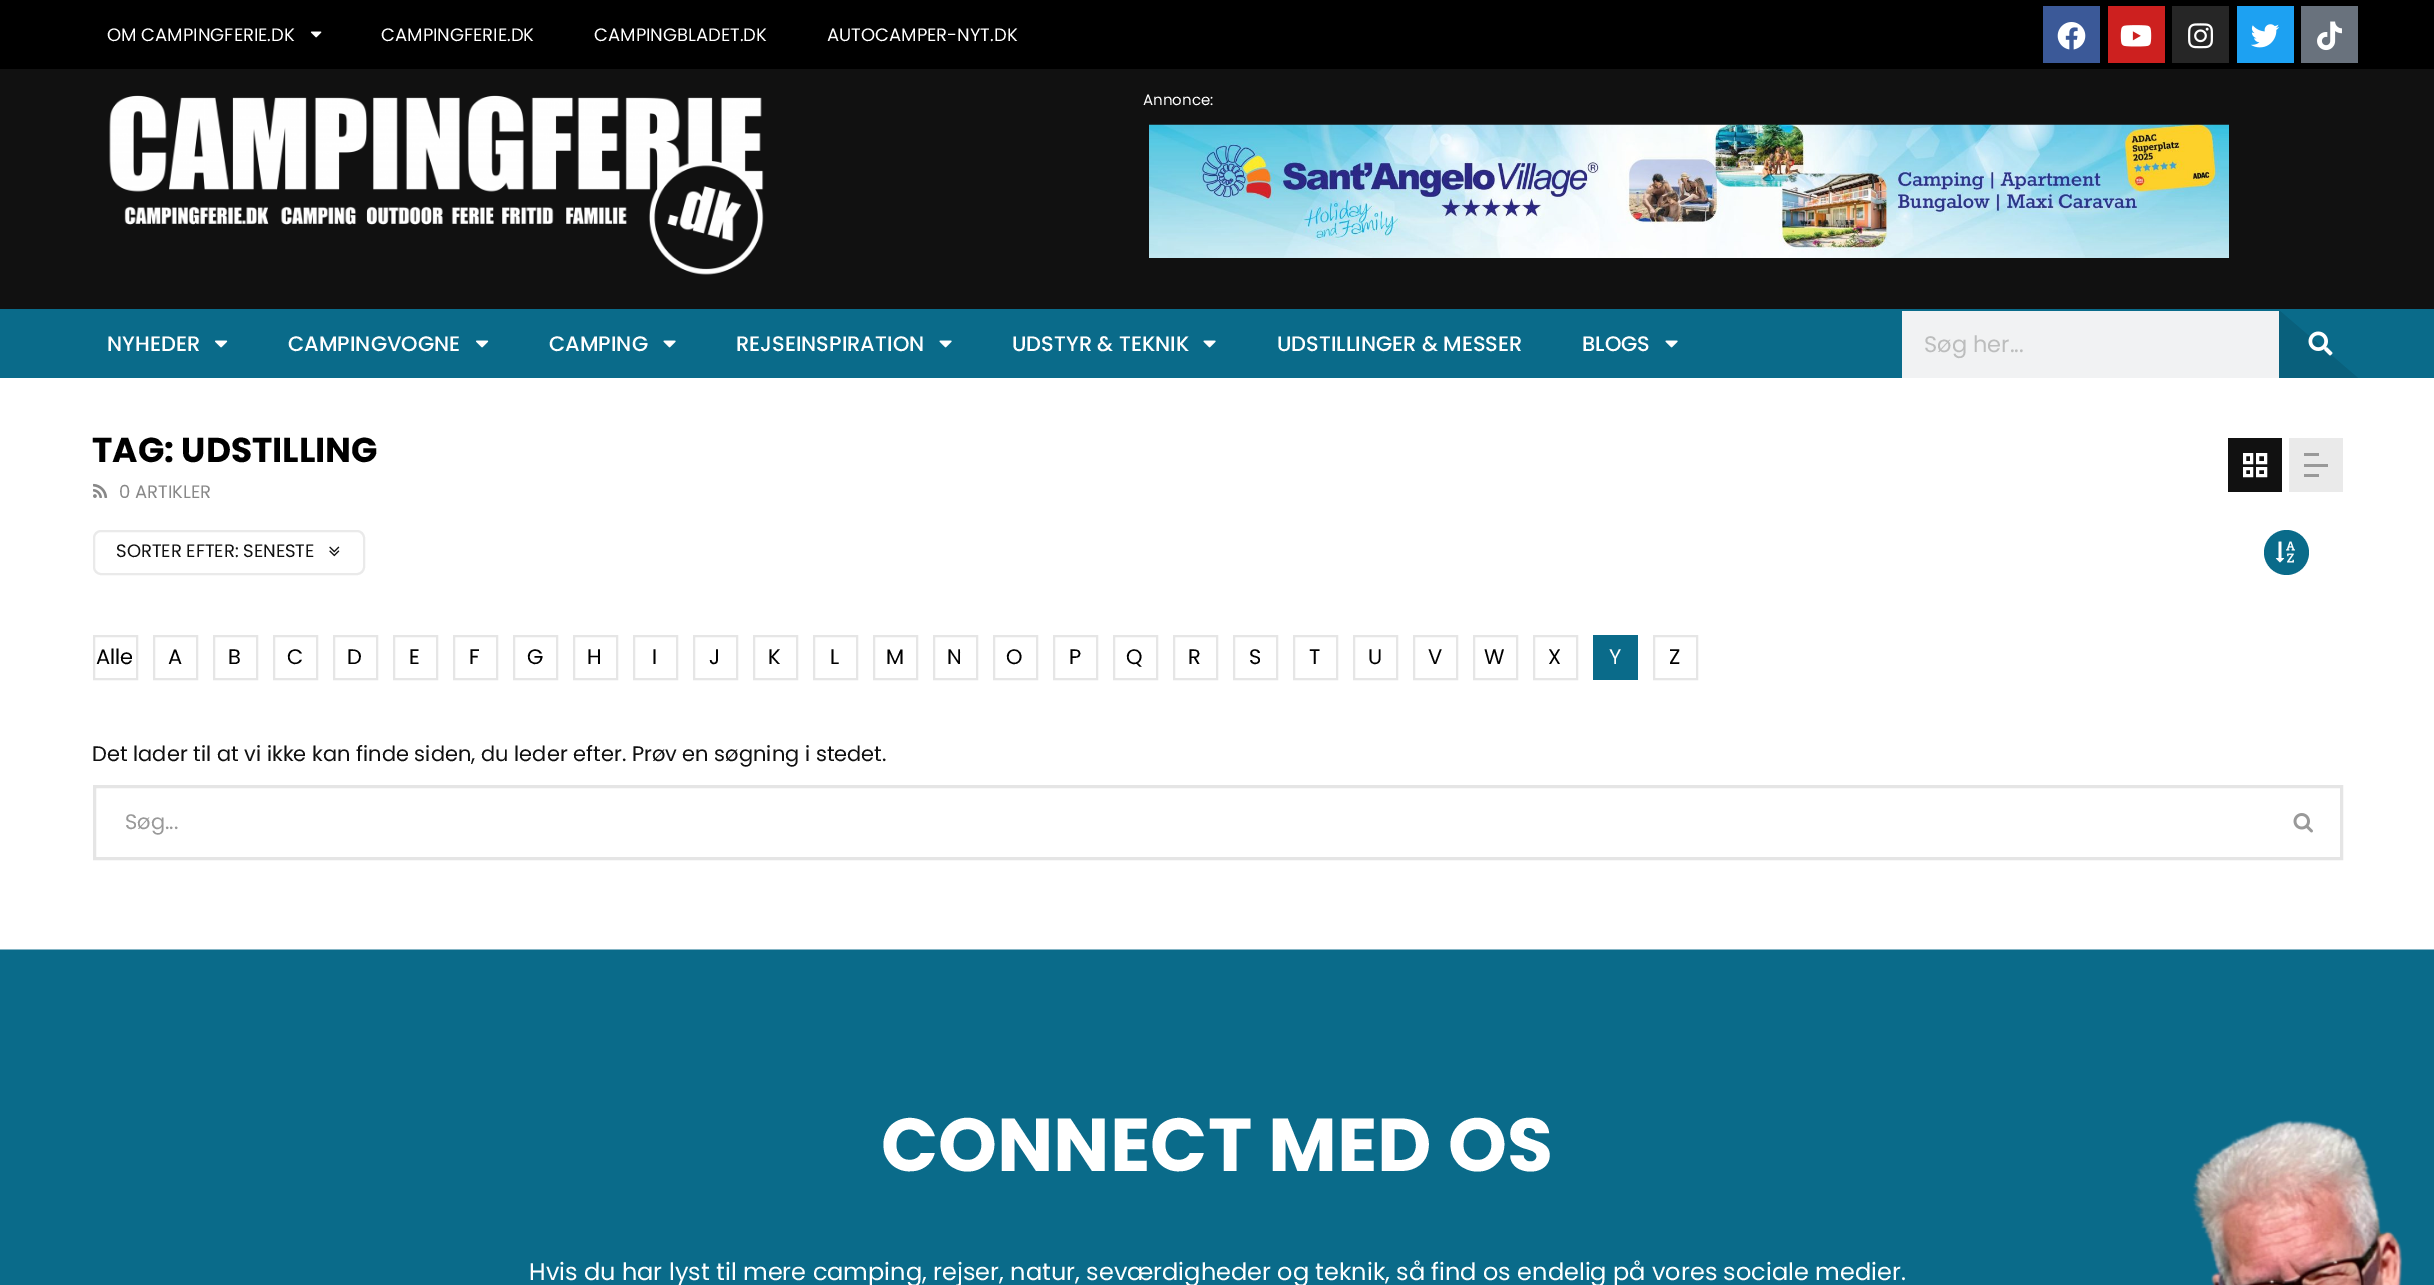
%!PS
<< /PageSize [2434 1285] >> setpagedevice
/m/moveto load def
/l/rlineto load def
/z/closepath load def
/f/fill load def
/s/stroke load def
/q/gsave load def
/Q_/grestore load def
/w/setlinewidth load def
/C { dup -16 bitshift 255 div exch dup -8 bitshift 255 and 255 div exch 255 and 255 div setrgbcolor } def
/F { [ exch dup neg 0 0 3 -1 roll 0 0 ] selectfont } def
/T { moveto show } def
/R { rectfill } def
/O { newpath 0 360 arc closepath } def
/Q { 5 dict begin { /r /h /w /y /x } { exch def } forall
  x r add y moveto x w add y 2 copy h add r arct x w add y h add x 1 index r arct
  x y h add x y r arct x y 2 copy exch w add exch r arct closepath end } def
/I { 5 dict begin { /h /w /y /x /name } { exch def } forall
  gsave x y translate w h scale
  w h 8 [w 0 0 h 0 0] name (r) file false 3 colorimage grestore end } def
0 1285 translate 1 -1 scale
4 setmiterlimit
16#FFFFFF C
0 0 2434 1285 R
16#000000 C
0 0 2434 69 R
/Poppins-Regular 18 F
16#FFFFFF C
(OM CAMPINGFERIE.DK) 107 41 T
(1.rgb) 310 31 12 7 I
(CAMPINGFERIE.DK) 381 41 T
(CAMPINGBLADET.DK) 594 41 T
(AUTOCAMPER-NYT.DK) 827 41 T
16#3B5998 C
2043 6 57 57 R
(2.rgb) 2057 22 29 28 I
16#CD201F C
2108 6 57 57 R
(3.rgb) 2120 25 32 22 I
16#262626 C
2172 6 57 57 R
(4.rgb) 2188 23 25 26 I
16#1DA1F2 C
2237 6 57 57 R
(5.rgb) 2251 24 29 24 I
16#69727D C
2301 6 57 57 R
(6.rgb) 2317 21 25 30 I
16#111111 C
0 69 2434 240 R
(7.rgb) 109 95 655 180 I
/Poppins-Regular 15 F
16#FFFFFF C
(Annonce:) 1143 105 T
(8.rgb) 1149 124 1080 134 I
16#0A6B8A C
0 309 2434 69 R
/Poppins-Medium 21 F
16#FFFFFF C
(NYHEDER) 107 351 T
(9.rgb) 215 340 13 8 I
(CAMPINGVOGNE) 288 351 T
(9.rgb) 476 340 13 8 I
(CAMPING) 549 351 T
(10.rgb) 663 340 13 8 I
(REJSEINSPIRATION) 736 351 T
(10.rgb) 939 340 13 8 I
(UDSTYR & TEKNIK) 1012 351 T
(10.rgb) 1203 340 13 8 I
(UDSTILLINGER & MESSER) 1277 351 T
(BLOGS) 1582 351 T
(10.rgb) 1665 340 13 8 I
16#F1F2F3 C
1902 311 377 67 R
/Poppins-Regular 22.5 F
16#BCBDBD C
(Søg her...) 1924 352 T
q 2279 311 m 79 0 l 0 67 l -79 0 l z clip newpath
<< /ShadingType 2 /ColorSpace /DeviceRGB /Coords [2352 305 2285 383] /Extend [true true] /Function << /FunctionType 3 /Domain [0 1] /Functions [<< /FunctionType 2 /Domain [0 1] /C0 [.039 .42 .541] /C1 [.039 .42 .541] /N 1 >> << /FunctionType 2 /Domain [0 1] /C0 [.035 .376 .486] /C1 [.035 .376 .486] /N 1 >>] /Bounds [.5] /Encode [0 1 0 1] >> >> shfill Q_
(11.rgb) 2308 331 25 25 I
/Poppins-Bold 34.5 F
16#000000 C
(TAG: UDSTILLING) 92 462 T
(12.rgb) 93 483 15 15 I
/Poppins-Regular 18 F
16#888888 C
(0 ARTIKLER) 119 498 T
16#EAEAEA C
2 w
94 531 270 43 7 Q s
16#111111 C
(SORTER EFTER: SENESTE) 116 557 T
(13.rgb) 329 546 11 11 I
2228 438 54 54 R
16#FFFFFF C
3 w
2244.5 454.5 7 8 rectstroke
2257.5 454.5 8 8 rectstroke
2244.5 468.5 7 7 rectstroke
2257.5 468.5 8 7 rectstroke
16#EAEAEA C
2289 438 54 54 R
16#999999 C
2304 453 15 3 R
2304 464 24 3 R
2304 474 15 3 R
16#0A6B8A C
2286.5 552.5 22.5 O f
(14.rgb) 2275 541 20 22 I
16#E6E6E6 C
2 w
94 636 43 43 rectstroke
/Poppins-Regular 21 F
16#000000 C
(Alle) 96 664 T
16#E6E6E6 C
154 636 43 43 rectstroke
16#000000 C
(A) 168 664 T
16#E6E6E6 C
214 636 43 43 rectstroke
16#000000 C
(B) 228 664 T
16#E6E6E6 C
274 636 43 43 rectstroke
16#000000 C
(C) 287 664 T
16#E6E6E6 C
334 636 43 43 rectstroke
16#000000 C
(D) 347 664 T
16#E6E6E6 C
394 636 43 43 rectstroke
16#000000 C
(E) 409 664 T
16#E6E6E6 C
454 636 43 43 rectstroke
16#000000 C
(F) 469 664 T
16#E6E6E6 C
514 636 43 43 rectstroke
16#000000 C
(G) 527 664 T
16#E6E6E6 C
574 636 43 43 rectstroke
16#000000 C
(H) 587 664 T
16#E6E6E6 C
634 636 43 43 rectstroke
16#000000 C
(I) 652 664 T
16#E6E6E6 C
694 636 43 43 rectstroke
16#000000 C
(J) 709 664 T
16#E6E6E6 C
754 636 43 43 rectstroke
16#000000 C
(K) 768 664 T
16#E6E6E6 C
814 636 43 43 rectstroke
16#000000 C
(L) 830 664 T
16#E6E6E6 C
874 636 43 43 rectstroke
16#000000 C
(M) 886 664 T
16#E6E6E6 C
934 636 43 43 rectstroke
16#000000 C
(N) 947 664 T
16#E6E6E6 C
994 636 43 43 rectstroke
16#000000 C
(O) 1006 664 T
16#E6E6E6 C
1054 636 43 43 rectstroke
16#000000 C
(P) 1069 664 T
16#E6E6E6 C
1114 636 43 43 rectstroke
16#000000 C
(Q) 1126 664 T
16#E6E6E6 C
1174 636 43 43 rectstroke
16#000000 C
(R) 1188 664 T
16#E6E6E6 C
1234 636 43 43 rectstroke
16#000000 C
(S) 1249 664 T
16#E6E6E6 C
1294 636 43 43 rectstroke
16#000000 C
(T) 1309 664 T
16#E6E6E6 C
1354 636 43 43 rectstroke
16#000000 C
(U) 1368 664 T
16#E6E6E6 C
1414 636 43 43 rectstroke
16#000000 C
(V) 1428 664 T
16#E6E6E6 C
1474 636 43 43 rectstroke
16#000000 C
(W) 1484 664 T
16#E6E6E6 C
1534 636 43 43 rectstroke
16#000000 C
(X) 1548 664 T
16#0A6B8A C
1593 635 45 45 R
16#FFFFFF C
(Y) 1609 664 T
16#E6E6E6 C
1654 636 43 43 rectstroke
16#000000 C
(Z) 1669 664 T
16#111111 C
(Det lader til at vi ikke kan finde siden, du leder efter. Prøv en søgning i stedet.) 92 761 T
16#E5E5E5 C
3 w
94.5 786.5 2247 72 rectstroke
16#999999 C
(Søg...) 125 829 T
(15.rgb) 2293 813 20 20 I
(16.rgb) 0 949 2434 336 I
/Poppins-Bold 75 F
16#FFFFFF C
(CONNECT MED OS) 881 1171 T
/Poppins-Regular 24 F
(Hvis du har lyst til mere camping, rejser, natur, seværdigheder og teknik, så find os endelig på vores sociale medier.) 529 1280 T
showpage
